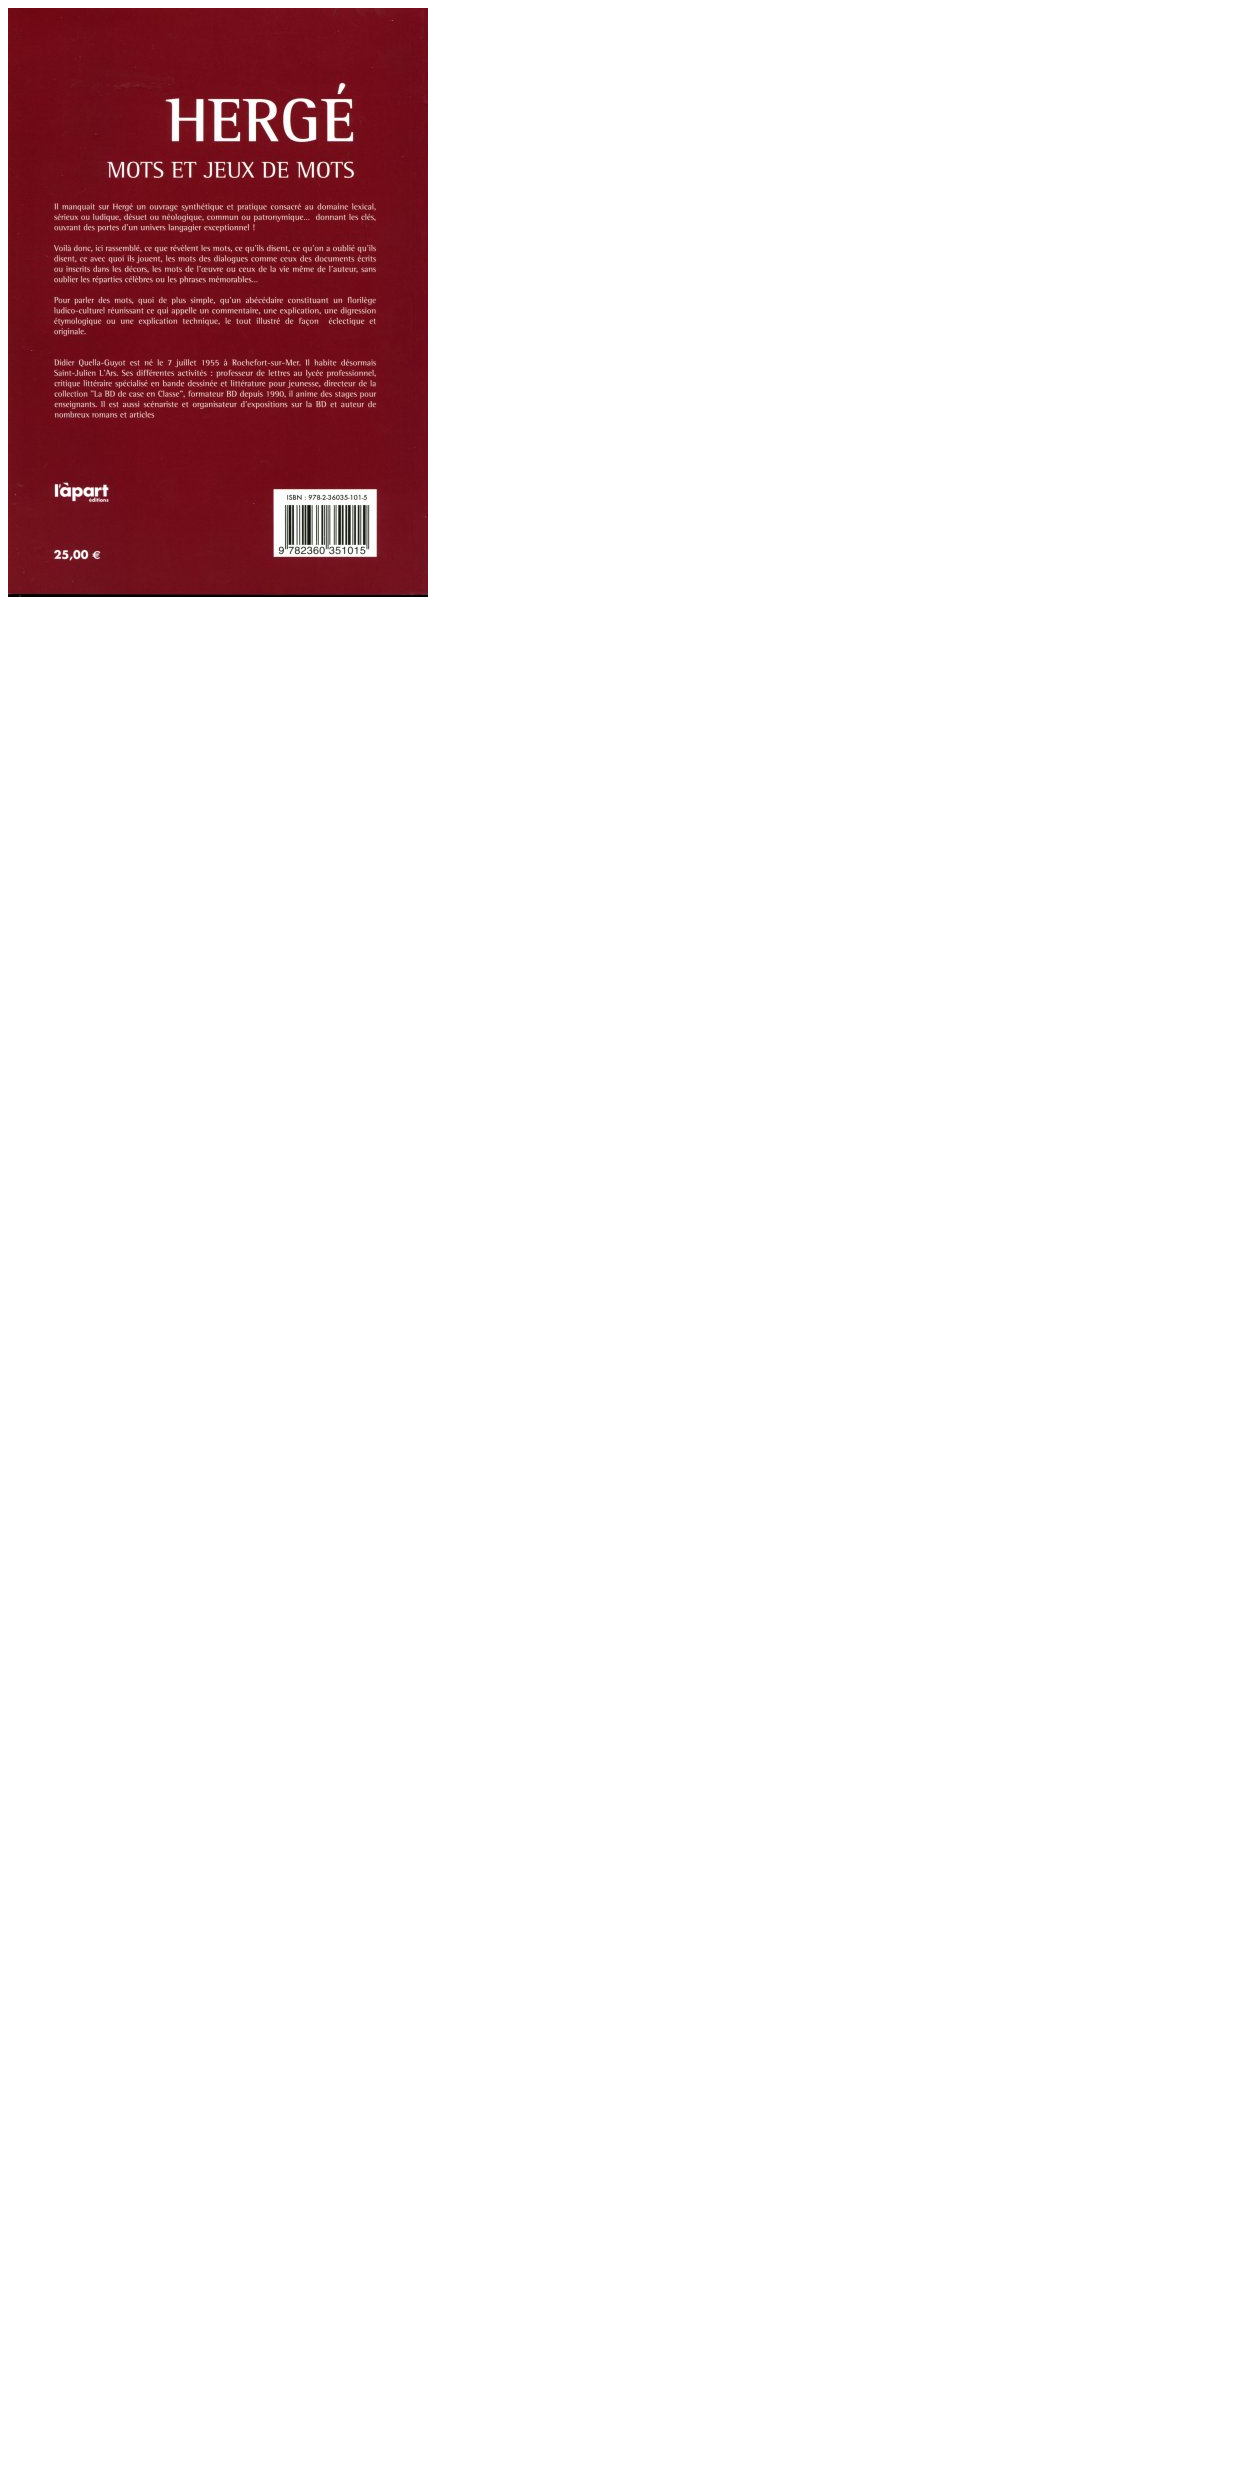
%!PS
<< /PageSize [1248 2478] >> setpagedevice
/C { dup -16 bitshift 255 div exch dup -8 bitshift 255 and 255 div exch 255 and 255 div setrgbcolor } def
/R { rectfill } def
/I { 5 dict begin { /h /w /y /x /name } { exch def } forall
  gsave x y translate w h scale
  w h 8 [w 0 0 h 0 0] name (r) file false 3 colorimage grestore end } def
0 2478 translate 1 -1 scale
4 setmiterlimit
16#FFFFFF C
0 0 1248 2478 R
(1.rgb) 8 8 420 589 I
showpage
